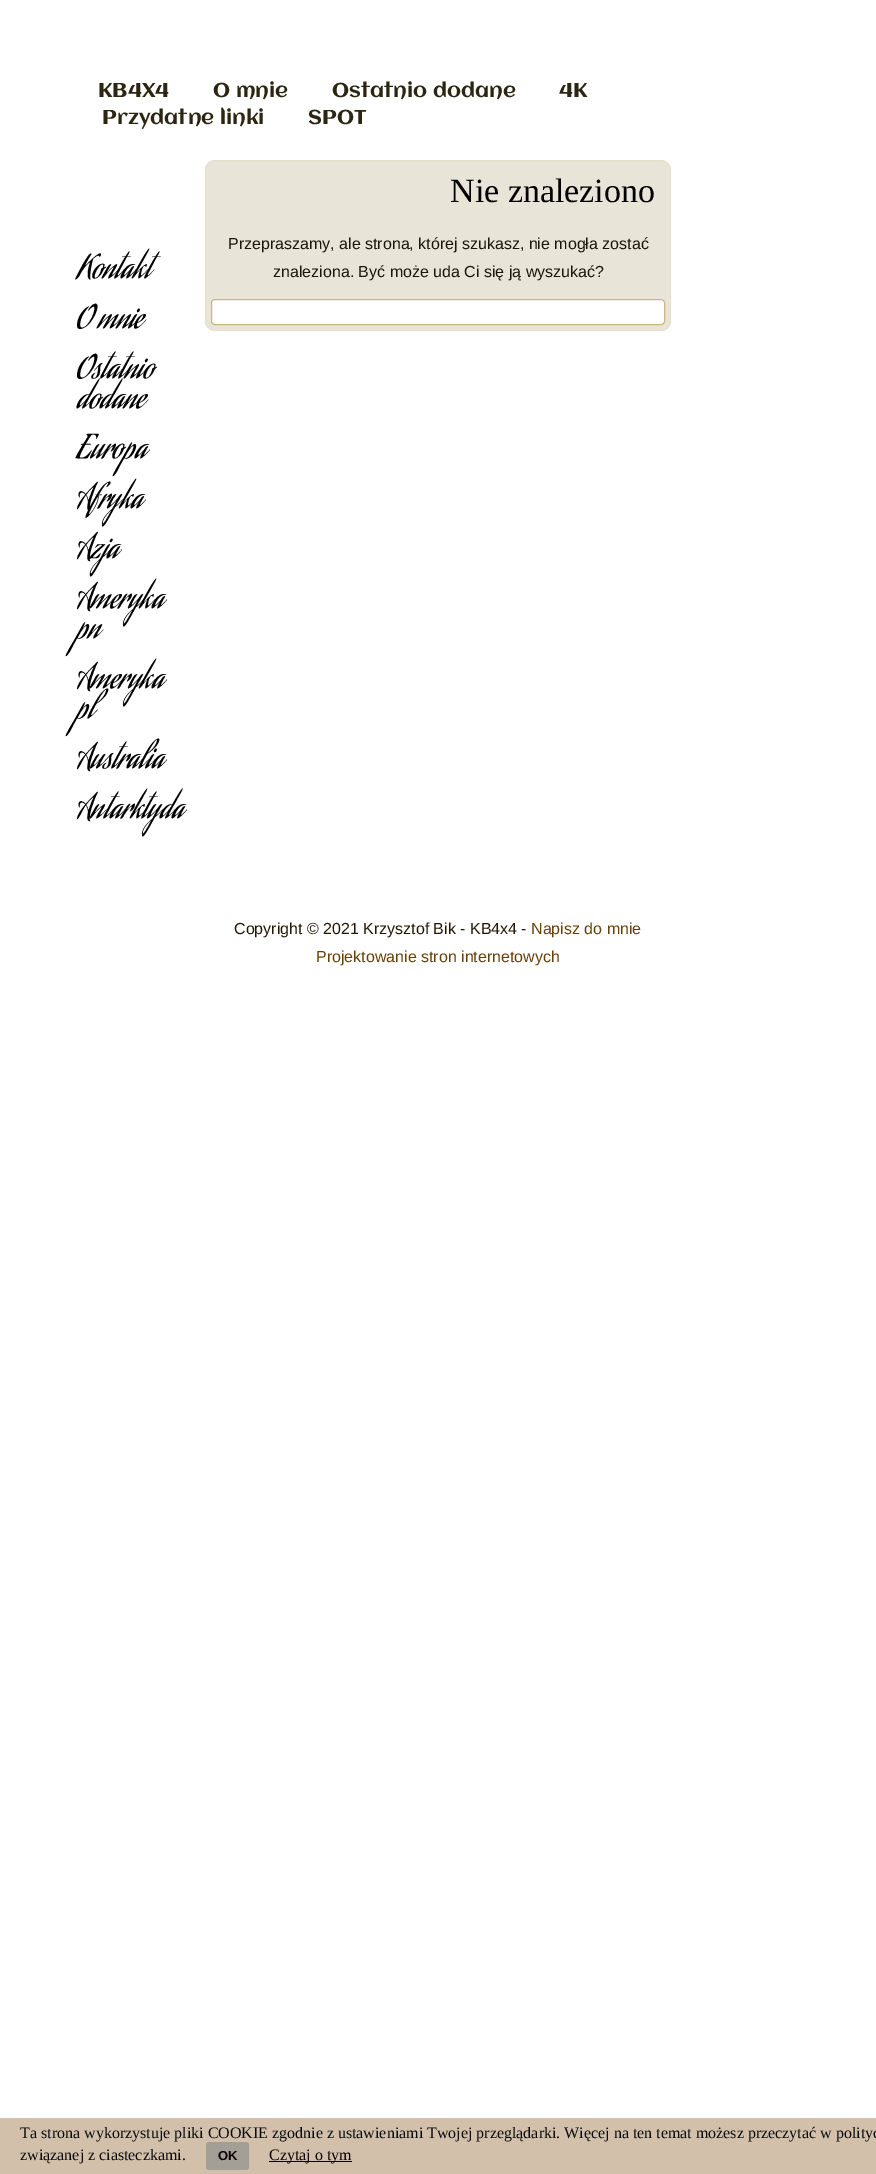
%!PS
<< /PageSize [876 2174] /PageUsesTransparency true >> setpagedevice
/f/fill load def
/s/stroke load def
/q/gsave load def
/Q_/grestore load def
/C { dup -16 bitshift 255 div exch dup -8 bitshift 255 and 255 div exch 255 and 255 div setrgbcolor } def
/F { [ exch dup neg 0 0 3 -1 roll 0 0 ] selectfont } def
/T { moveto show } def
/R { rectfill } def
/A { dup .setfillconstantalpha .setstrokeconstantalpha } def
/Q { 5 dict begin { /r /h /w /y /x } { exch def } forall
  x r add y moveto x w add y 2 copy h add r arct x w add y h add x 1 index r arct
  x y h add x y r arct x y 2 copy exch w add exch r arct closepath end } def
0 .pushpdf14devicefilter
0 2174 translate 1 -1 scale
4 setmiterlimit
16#FFFFFF C
0 0 876 2174 R
/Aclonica-Regular 20 F
16#2B2512 C
(KB4X4) 98 97 T
(O mnie) 213 97 T
(Ostatnio dodane) 332 97 T
(4K) 559 97 T
(Przydatne linki) 102 124 T
(SPOT) 308 124 T
16#E8E4D7 C
205 160 466 171 10 Q f
0.2 A
16#D9CBA1 C
205.5 160.5 465 170 9.5 Q s
/LiberationSerif-Regular 34 F
1 A
16#000000 C
(Nie znaleziono) 450 202 T
/LiberationSans-Regular 16 F
16#19160A C
(Przepraszamy, ale strona, której szukasz, nie mogła zostać) 228 249 T
(znaleziona. Być może uda Ci się ją wyszukać?) 273 277 T
16#FFFFFF C
211.5 299.5 453 25 3.5 Q q f Q_
16#CBB880 C
s
/AguafinaScript-Regular 32 F
16#000000 C
(Kontakt) 77 278 T
(O mnie) 77 328 T
(Ostatnio) 77 378 T
(dodane) 77 408 T
(Europa) 77 458 T
(Afryka) 77 508 T
(Azja) 77 558 T
(Ameryka) 77 608 T
(pn) 77 638 T
(Ameryka) 77 688 T
(pl) 77 718 T
(Australia) 77 768 T
(Antarktyda) 77 818 T
/LiberationSans-Regular 16 F
16#251703 C
(Copyright © 2021 Krzysztof Bik - KB4x4 -) 234 934 T
16#67400A C
(Napisz do mnie) 531 934 T
(Projektowanie stron internetowych) 316 962 T
16#D3C0AB C
0 2118 876 56 R
/LiberationSerif-Regular 16 F
16#0A0A0A C
(Ta strona wykorzystuje pliki COOKIE zgodnie z ustawieniami Twojej przeglądarki. Więcej na ten temat możesz przeczytać w polityc) 20 2138 T
(związanej z ciasteczkami.) 20 2160 T
16#A39F97 C
206 2142 43 28 3 Q f
/LiberationSans-Bold 13 F
16#0A0000 C
(OK) 218 2160 T
269 2161 83 1 R
/LiberationSerif-Regular 16 F
(Czytaj o tym) 269 2160 T
.poppdf14devicefilter showpage
